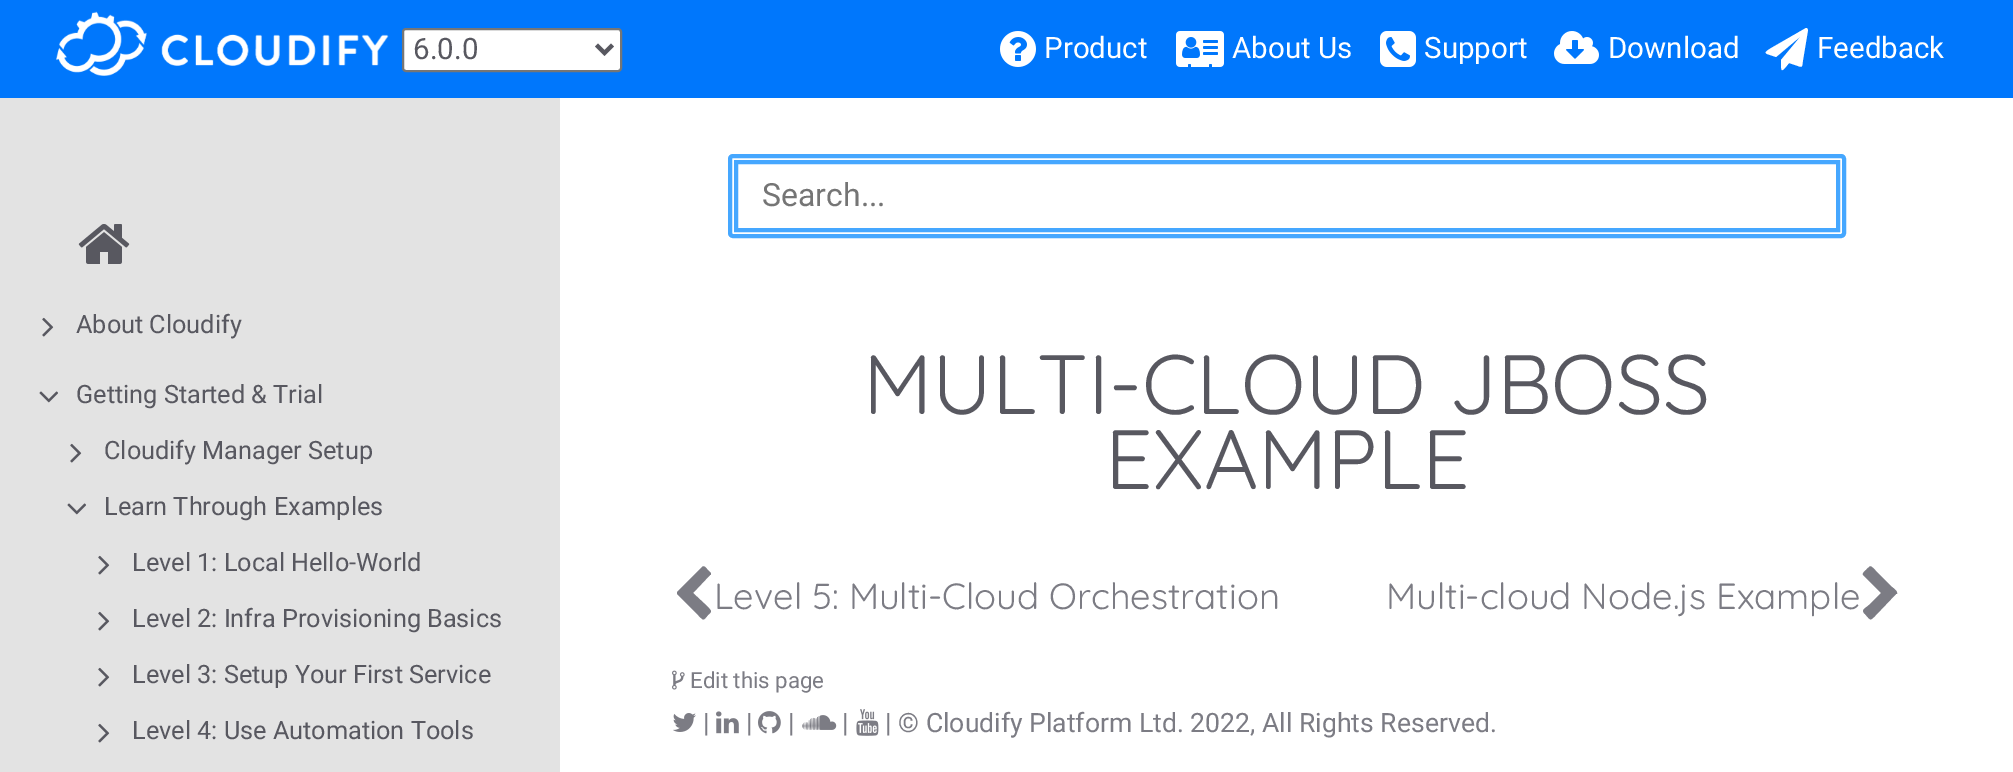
%!PS
<< /PageSize [2013 772] >> setpagedevice
/m/moveto load def
/l/rlineto load def
/c/rcurveto load def
/z/closepath load def
/f/fill load def
/s/stroke load def
/q/gsave load def
/Q_/grestore load def
/w/setlinewidth load def
/C { dup -16 bitshift 255 div exch dup -8 bitshift 255 and 255 div exch 255 and 255 div setrgbcolor } def
/F { [ exch dup neg 0 0 3 -1 roll 0 0 ] selectfont } def
/T { moveto show } def
/R { rectfill } def
/Q { 5 dict begin { /r /h /w /y /x } { exch def } forall
  x r add y moveto x w add y 2 copy h add r arct x w add y h add x 1 index r arct
  x y h add x y r arct x y 2 copy exch w add exch r arct closepath end } def
/I { 5 dict begin { /h /w /y /x /name } { exch def } forall
  gsave x y translate w h scale
  w h 8 [w 0 0 h 0 0] name (r) file false 3 colorimage grestore end } def
0 772 translate 1 -1 scale
4 setmiterlimit
16#FFFFFF C
0 0 2013 772 R
16#0077FC C
0 0 2013 98 R
(1.rgb) 56 11 333 65 I
16#FFFFFF C
403 29 218 42 3 Q q f Q_
16#767676 C
2 w
s
16#585860 C
4 w
596.5 45 m 8 8 l 8 -8 l s
/Roboto-Regular 29.5 F
(6.0.0) 413 59 T
(2.rgb) 1000 31 36 36 I
16#FFFFFF C
(Product) 1044 58 T
(3.rgb) 1176 31 48 36 I
(About Us) 1232 58 T
(4.rgb) 1380 31 36 36 I
(Support) 1424 58 T
(5.rgb) 1554 31 45 33 I
(Download) 1608 58 T
1807 28 m 1 2 l -5 30 l -1 6 0 8 -5 6 c -9 -3 l -8 10 -8 10 -8 -3 c 20 -24 l -25 21 l -11 -4 -15 -3 -3 -10 c 33 -19 l z f
(Feedback) 1817 58 T
16#E3E3E3 C
0 98 560 674 R
(6.rgb) 78 224 52 40 I
(7.rgb) 42 317 12 20 I
/Roboto-Regular 25.25 F
16#585860 C
(About Cloudify) 76 333 T
(8.rgb) 39 391 19 12 I
(Getting Started & Trial) 76 403 T
(7.rgb) 70 443 12 20 I
(Cloudify Manager Setup) 104 459 T
(8.rgb) 67 503 19 12 I
(Learn Through Examples) 104 515 T
(7.rgb) 98 555 12 20 I
(Level 1: Local Hello-World) 132 571 T
(7.rgb) 98 611 12 20 I
(Level 2: Infra Provisioning Basics) 132 627 T
(7.rgb) 98 667 12 20 I
(Level 3: Setup Your First Service) 132 683 T
(7.rgb) 98 723 12 20 I
(Level 4: Use Automation Tools) 132 739 T
16#45A7FF C
730 156 1114 80 3 Q s
736 162 1102 68 rectstroke
/Roboto-Regular 32 F
16#757575 C
(Search...) 762 206 T
/Quicksand-Light 84 F
16#585860 C
(MULTI-CLOUD JBOSS) 863 414 T
(EXAMPLE) 1105 489 T
16#7C7C84 C
710 575 m -17 18 l 15 14 l 4 5 4 4 0 8 c -5 6 -4 6 -10 0 c -21 -21 l 0 -2 l 25 -25 l 2 -2 4 1 5 2 c 4 4 l 0 1 0 2 -1 2 c z f
/Quicksand-Light 36.4 F
(Level 5: Multi-Cloud Orchestration) 714 609 T
(Multi-cloud Node.js Example) 1386 609 T
1896 594 m -20 21 l -6 6 -5 6 -11 -1 c -5 -4 1 -6 4 -9 c 12 -12 l -18 -18 l -1 -2 2 -4 3 -5 c 5 -5 4 -5 10 1 c 16 16 l 1 1 6 4 5 7 c z f
(9.rgb) 672 670 13 20 I
/Roboto-Regular 22.25 F
(Edit this page) 690 688 T
(10.rgb) 673 713 23 19 I
/Roboto-Regular 26.6 F
(|) 703 732 T
(11.rgb) 716 711 23 23 I
(|) 746 732 T
(12.rgb) 758 711 23 23 I
(|) 788 732 T
(13.rgb) 802 715 35 15 I
(|) 842 732 T
(14.rgb) 856 709 23 27 I
(| © Cloudify Platform Ltd. 2022, All Rights Reserved.) 885 732 T
showpage
